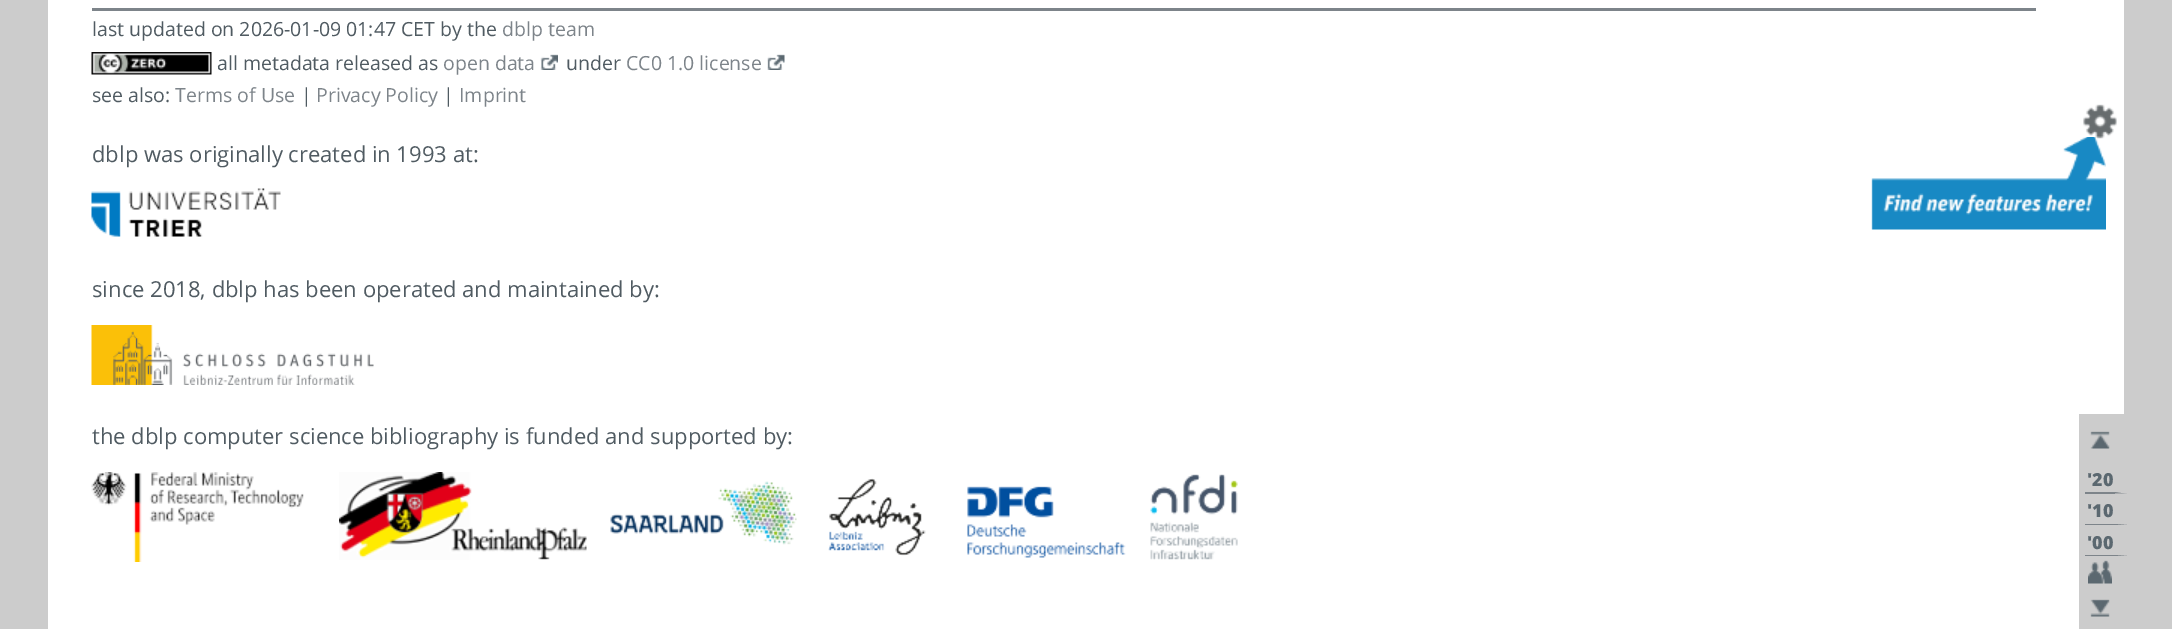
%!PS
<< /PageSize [2172 629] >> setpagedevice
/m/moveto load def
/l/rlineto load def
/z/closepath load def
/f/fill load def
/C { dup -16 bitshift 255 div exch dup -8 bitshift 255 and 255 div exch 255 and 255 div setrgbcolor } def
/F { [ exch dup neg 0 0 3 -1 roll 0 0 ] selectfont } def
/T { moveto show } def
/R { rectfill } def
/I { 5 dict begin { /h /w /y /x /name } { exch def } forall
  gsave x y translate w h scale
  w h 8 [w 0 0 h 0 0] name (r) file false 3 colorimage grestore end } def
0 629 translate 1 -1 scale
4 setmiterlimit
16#CCCCCC C
0 0 2172 629 R
16#FFFFFF C
48 0 2076 629 R
16#7D848A C
92 8 1944 3 R
/OpenSans-Regular 19.5 F
16#505B62 C
(last updated on 2026-01-09 01:47 CET by the) 92 36 T
16#7D848A C
(dblp team) 502 36 T
(1.rgb) 91 52 121 23 I
16#505B62 C
(all metadata released as) 217 70 T
16#7D848A C
(open data) 443 70 T
(2.rgb) 540 54 18 16 I
16#505B62 C
(under) 566 70 T
16#7D848A C
(CC0 1.0 license) 626 70 T
(3.rgb) 767 54 18 16 I
16#505B62 C
(see also:) 92 102 T
16#7D848A C
(Terms of Use) 175 102 T
16#505B62 C
(|) 301 102 T
16#7D848A C
(Privacy Policy) 316 102 T
16#505B62 C
(|) 443 102 T
16#7D848A C
(Imprint) 459 102 T
/OpenSans-Regular 22 F
16#505B62 C
(dblp was originally created in 1993 at:) 92 162 T
(4.rgb) 91 188 190 49 I
(since 2018, dblp has been operated and maintained by:) 92 297 T
(5.rgb) 91 325 283 60 I
(the dblp computer science bibliography is funded and supported by:) 92 444 T
(6.rgb) 91 472 213 90 I
(7.rgb) 339 472 248 88 I
(8.rgb) 610 481 187 64 I
(9.rgb) 828 478 98 78 I
(10.rgb) 967 486 159 72 I
(11.rgb) 1150 474 88 86 I
(13.rgb) 1871 137 235 93 I
(12.rgb) 2083 104 34 35 I
16#CCCCCC C
2079 414 45 215 R
(14.rgb) 2090 431 20 18 I
16#7D848A C
2127 494 m -42 0 l 0 -2 l 30 0 l z f
/OpenSans-ExtraBold 18 F
16#5B6870 C
('20) 2087 486 T
16#CCCCCC C
2127 493.5 m 0 31.5 l -12 -1.5 l 0 -30 l z f
16#7D848A C
2127 525 m -42 0 l 0 -1 l 30 0 l z 2127 556 m -42 0 l 0 -1 l 30 0 l z f
16#5B6870 C
('10) 2087 517 T
('00) 2087 549 T
(15.rgb) 2088 560 24 24 I
(16.rgb) 2090 599 20 18 I
showpage
